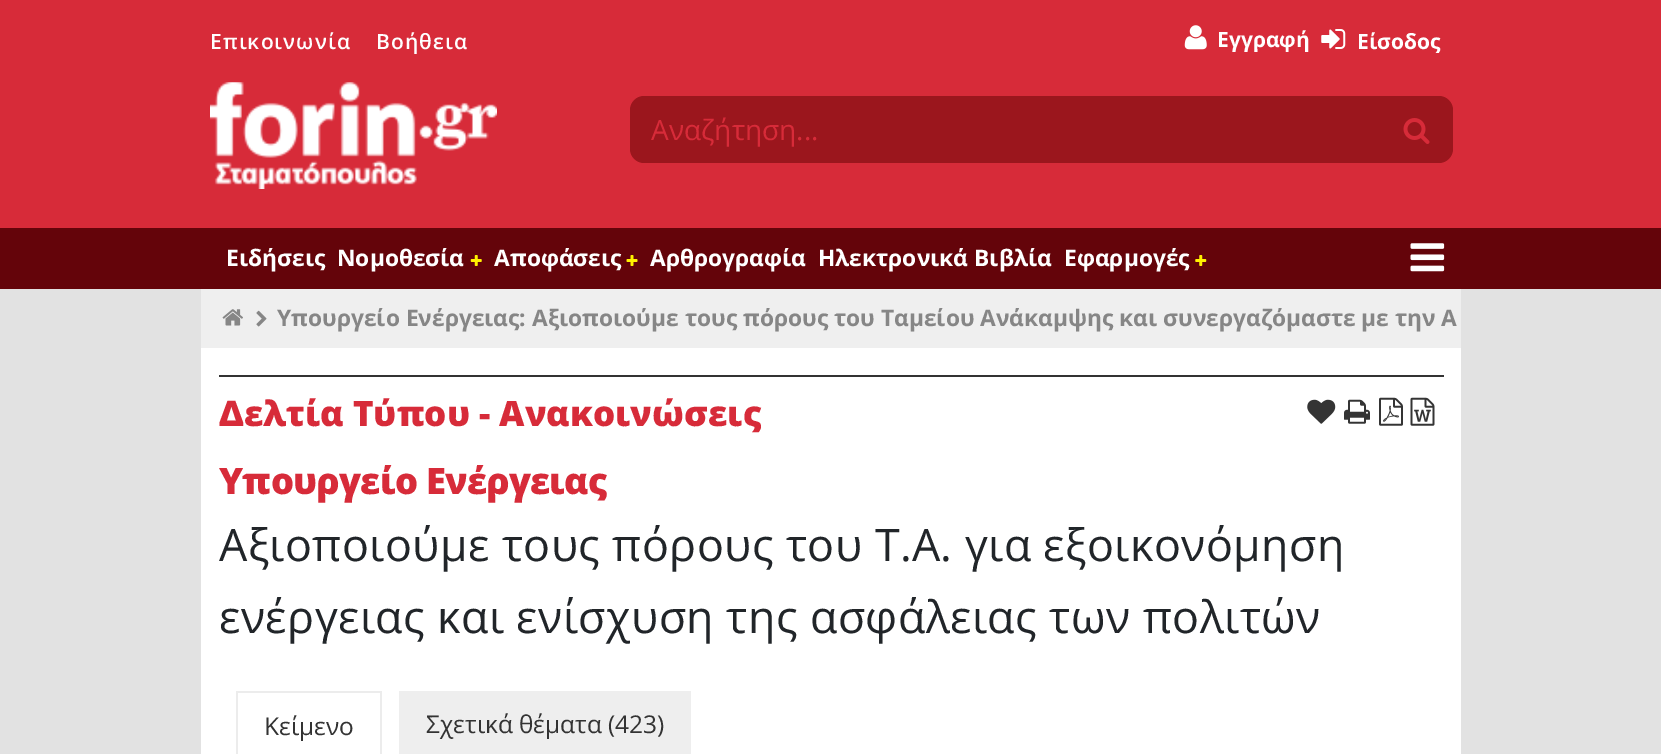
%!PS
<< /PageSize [1661 754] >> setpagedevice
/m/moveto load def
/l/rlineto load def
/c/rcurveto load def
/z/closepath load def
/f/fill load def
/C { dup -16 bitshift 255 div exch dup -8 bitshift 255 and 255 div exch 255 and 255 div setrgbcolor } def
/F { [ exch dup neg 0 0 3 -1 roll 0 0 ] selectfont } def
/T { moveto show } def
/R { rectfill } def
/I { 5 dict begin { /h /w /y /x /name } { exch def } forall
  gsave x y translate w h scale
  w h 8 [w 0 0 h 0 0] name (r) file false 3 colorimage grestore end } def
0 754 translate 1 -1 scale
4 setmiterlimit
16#E2E2E2 C
0 0 1661 754 R
16#D72B39 C
0 0 1661 228 R
/OpenSans-SemiBold 21 F
16#FFFFFF C
210 49 m 1.1 0 (Επικοινωνία) ashow
376 49 m 1.1 0 (Βοήθεια) ashow
(1.rgb) 210 82 287 107 I
(2.rgb) 1184 25 23 25 I
/OpenSans-Bold 21 F
(Εγγραφή) 1217 47 T
(3.rgb) 1321 29 25 20 I
(Είσοδος) 1357 49 T
16#9B161D C
644 96 m 739 0 l 0 67 l -739 0 l -7.5 0 -14 -6.5 -14 -14 c 0 -39 l 0 -7.5 6.5 -14 14 -14 c z f
/OpenSans-Regular 28 F
16#D72B39 C
(Αναζήτηση...) 651 140 T
16#9B161D C
1381 96 m 58 0 l 7.5 0 14 6.5 14 14 c 0 39 l 0 7.5 -6.5 14 -14 14 c -58 0 l z f
(4.rgb) 1403 118 27 26 I
16#64040A C
0 228 1661 61 R
/OpenSans-Bold 22.75 F
16#FFFFFF C
(Ειδήσεις) 226 266 T
(Νομοθεσία) 337 266 T
(5.rgb) 470 255 12 11 I
(Αποφάσεις) 494 266 T
(6.rgb) 626 255 12 11 I
(Αρθρογραφία) 650 266 T
(Ηλεκτρονικά Βιβλία) 818 266 T
(Εφαρμογές) 1064 266 T
(7.rgb) 1195 255 12 11 I
(8.rgb) 1410 243 35 29 I
201 348 1260 406 R
16#EFEFEF C
201 289 1260 59 R
(9.rgb) 222 309 21 17 I
(10.rgb) 256 310 11 17 I
16#868686 C
(Υπουργείο Ενέργειας: Αξιοποιούμε τους πόρους του Ταμείου Ανάκαμψης και συνεργαζόμαστε με την Α) 277 326 T
16#333333 C
219 375 1225 2 R
/OpenSans-ExtraBold 35 F
16#D72B39 C
(Δελτία Τύπου - Ανακοινώσεις) 219 426 T
(11.rgb) 1307 399 29 25 I
(12.rgb) 1344 399 26 25 I
(13.rgb) 1379 397 24 29 I
(14.rgb) 1410 397 25 29 I
/OpenSans-ExtraBold 36.4 F
219 494 m -.8 0 (Υπουργείο Ενέργειας) ashow
/OpenSans-Regular 44.8 F
16#212529 C
219 561 m .4 0 (Αξιοποιούμε τους πόρους του Τ.Α. για εξοικονόμηση) ashow
219 633 m .4 0 (ενέργειας και ενίσχυση της ασφάλειας των πολιτών) ashow
16#ECECEC C
236 691 146 2 R
380 691 2 63 R
236 691 2 63 R
/OpenSans-Regular 24.5 F
16#333333 C
(Κείμενο) 264 735 T
16#EEEEEE C
399 691 292 63 R
16#333333 C
(Σχετικά θέματα \(423\)) 426 733 T
showpage
